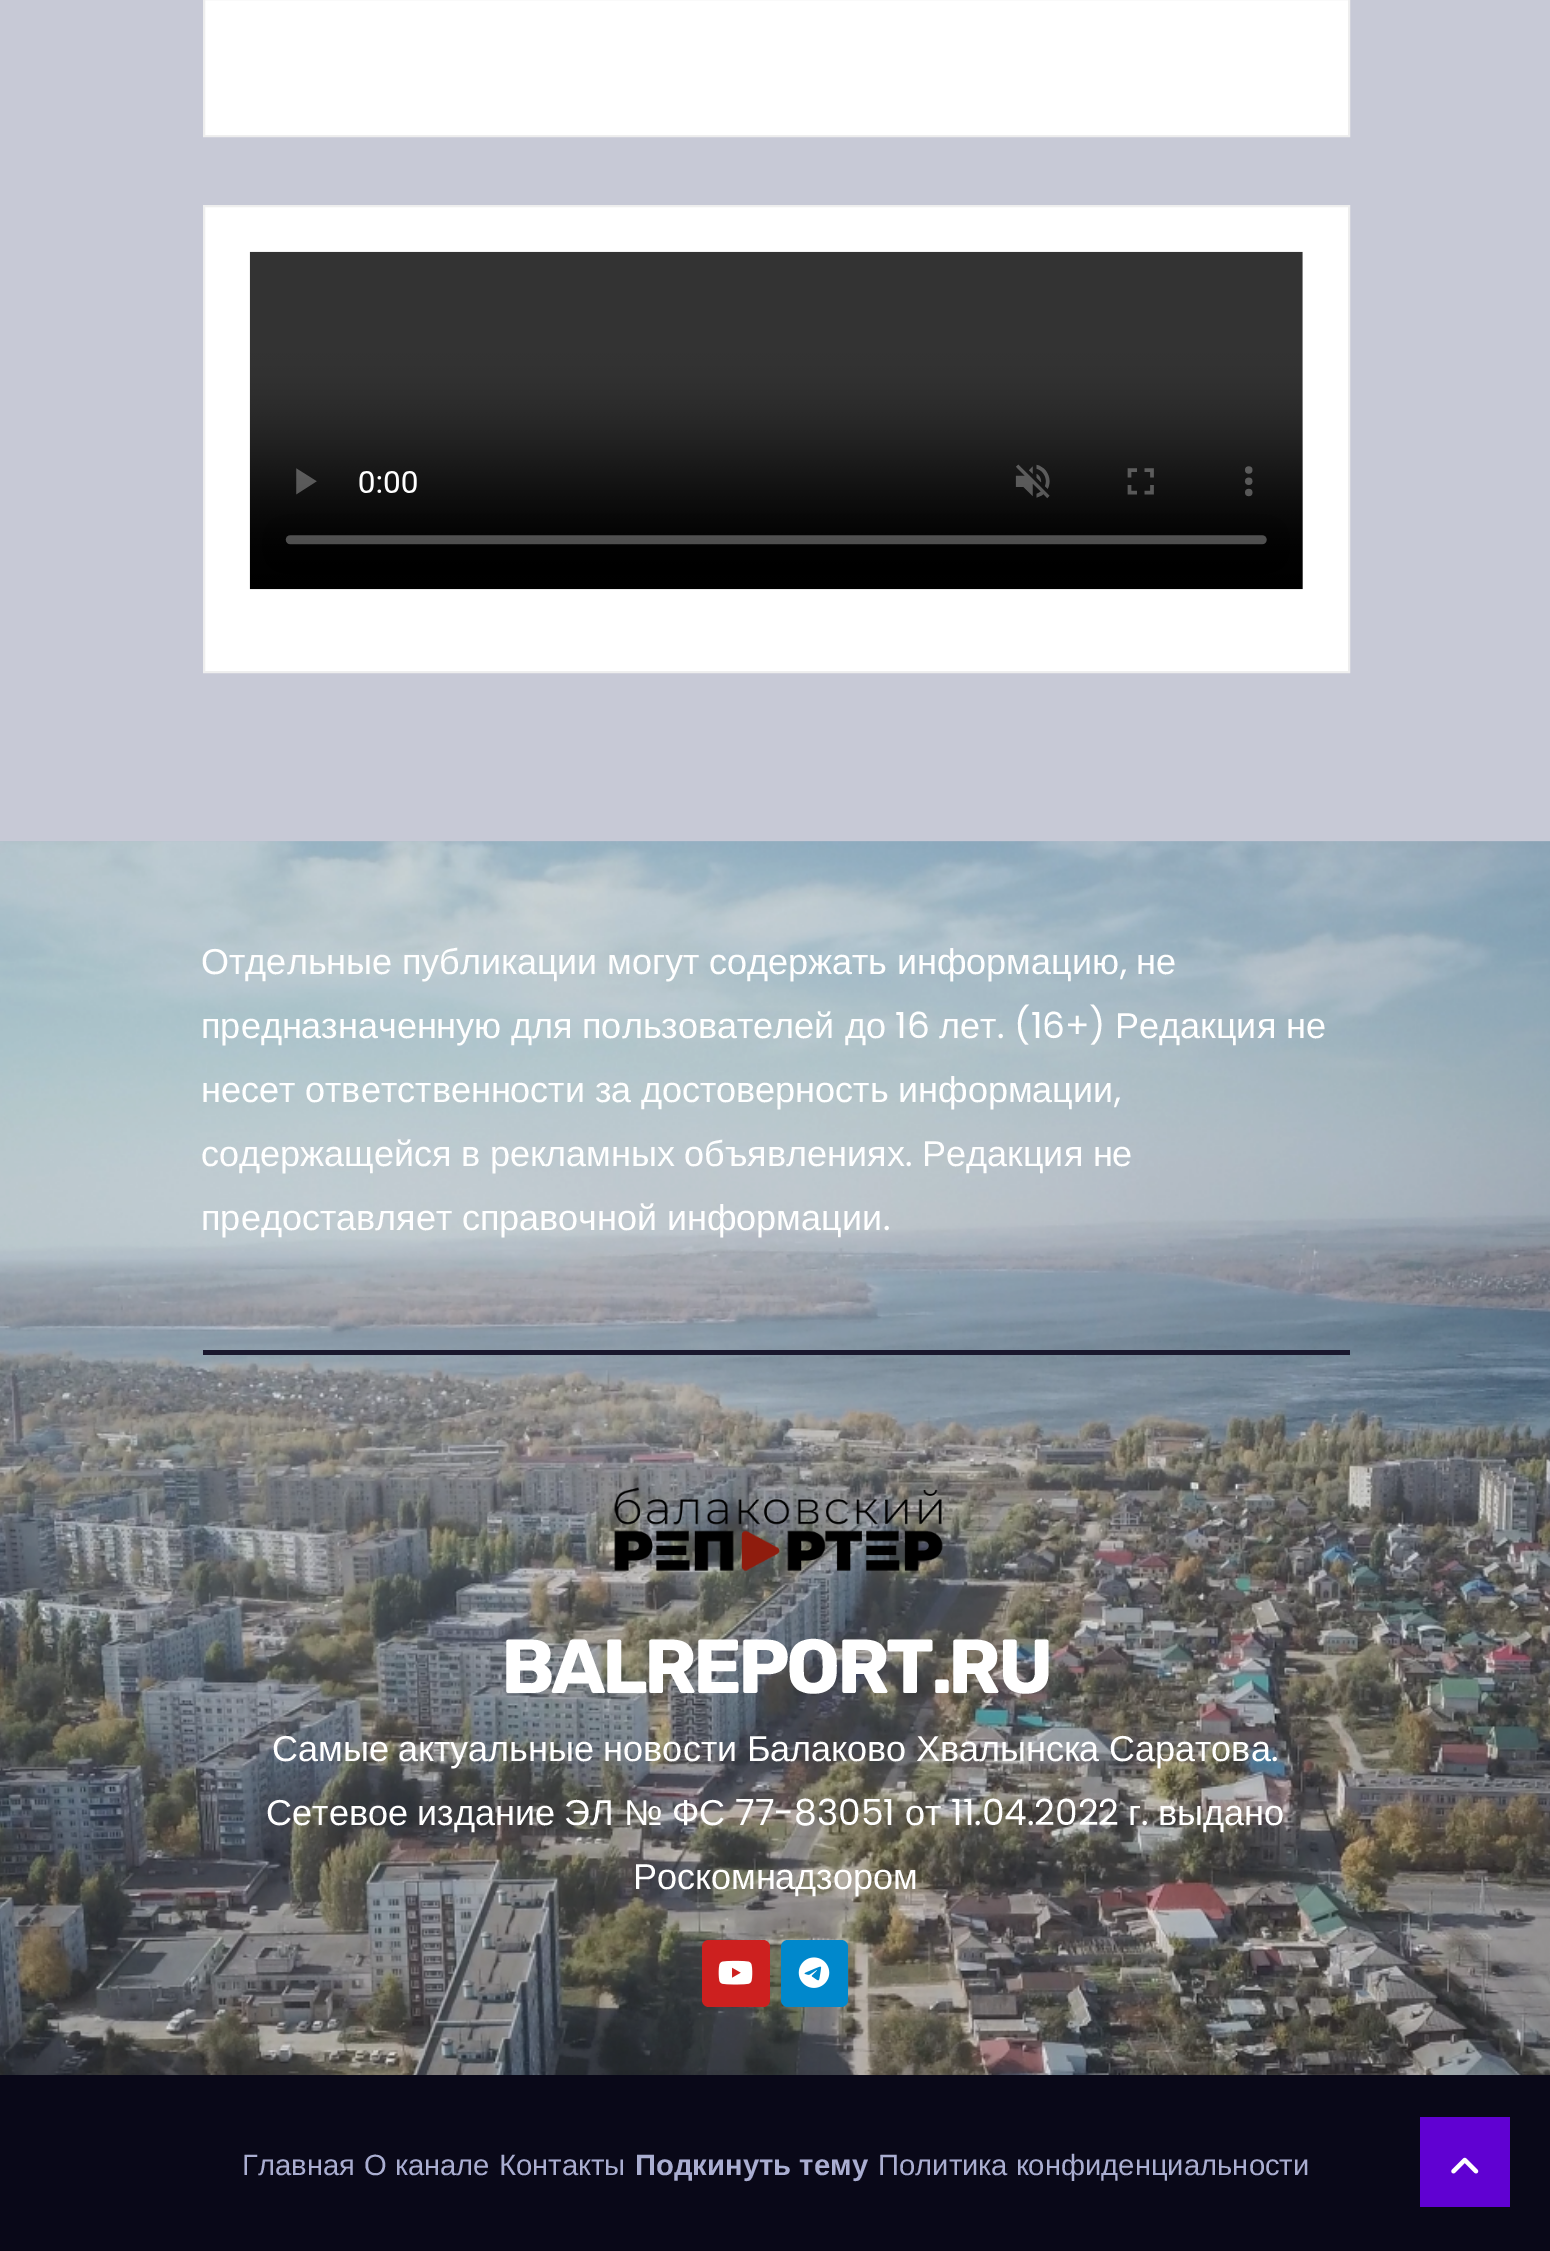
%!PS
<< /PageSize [1550 2251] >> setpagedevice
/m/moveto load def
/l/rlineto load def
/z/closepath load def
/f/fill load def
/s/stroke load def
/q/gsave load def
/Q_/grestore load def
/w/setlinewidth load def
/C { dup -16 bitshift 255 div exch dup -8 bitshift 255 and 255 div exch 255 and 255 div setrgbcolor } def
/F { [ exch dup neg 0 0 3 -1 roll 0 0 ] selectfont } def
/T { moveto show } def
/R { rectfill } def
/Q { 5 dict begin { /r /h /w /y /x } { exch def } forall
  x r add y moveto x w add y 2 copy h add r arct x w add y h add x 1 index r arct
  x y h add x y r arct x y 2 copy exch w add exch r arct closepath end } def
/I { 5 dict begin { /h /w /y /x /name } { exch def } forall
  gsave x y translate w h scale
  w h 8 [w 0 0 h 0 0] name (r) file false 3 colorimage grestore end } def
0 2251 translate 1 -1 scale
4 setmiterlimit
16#C7C9D6 C
0 0 1550 2251 R
16#FFFFFF C
204 -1 m 1145 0 l 0 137 l -1145 0 l z q f Q_
16#EEEEEE C
2 w
s
16#FFFFFF C
204 206 m 1145 0 l 0 466 l -1145 0 l z q f Q_
16#EEEEEE C
s
(1.rgb) 249 251 1054 339 I
(2.rgb) 0 841 1550 1234 I
/LiberationSans-Regular 36 F
16#FFFFFF C
201 974 m -.5 0 32 (Отдельные публикации могут содержать информацию) widthshow
/Poppins-Regular 36 F
(,) 1120 974 T
/LiberationSans-Regular 36 F
(не) 1136 974 T
(предназначенную) 201 1038 T
(для) 511 1038 T
(пользователей) 582 1038 T
(до) 845 1038 T
/Poppins-Regular 36 F
(16) 895 1038 T
/LiberationSans-Regular 36 F
(лет) 939 1038 T
/Poppins-Regular 36 F
(. \(16+\)) 997 1038 T
/LiberationSans-Regular 36 F
(Редакция) 1115 1038 T
(не) 1286 1038 T
201 1102 m -.5 0 32 (несет ответственности за достоверность информации) widthshow
/Poppins-Regular 36 F
(,) 1114 1102 T
/LiberationSans-Regular 36 F
201 1166 m -.5 0 32 (содержащейся в рекламных объявлениях) widthshow
/Poppins-Regular 36 F
(.) 905 1166 T
/LiberationSans-Regular 36 F
922 1166 m -.5 0 32 (Редакция не) widthshow
201 1230 m -.5 0 32 (предоставляет справочной информации) widthshow
/Poppins-Regular 36 F
(.) 883 1230 T
16#1A182E C
203 1350 1147 5 R
(3.rgb) 614 1487 329 84 I
/Rubik-Bold 76.5 F
16#FFFFFF C
501 1693 m -3.75 0 (BALREPORT.RU) ashow
/LiberationSans-Regular 36 F
272 1761 m -.5 0 32 (Самые актуальные новости Балаково Хвалынска Саратова) widthshow
/Poppins-Regular 36 F
(.) 1271 1761 T
/LiberationSans-Regular 36 F
266 1825 m -.5 0 32 (Сетевое издание) widthshow
(ЭЛ № ФС) 564 1825 T
/Poppins-Regular 36 F
(77-83051) 735 1825 T
/LiberationSans-Regular 36 F
(от) 905 1825 T
/Poppins-Regular 36 F
(11.04.2022) 951 1825 T
/LiberationSans-Regular 36 F
(г) 1128 1825 T
/Poppins-Regular 36 F
(.) 1141 1825 T
/LiberationSans-Regular 36 F
(выдано) 1158 1825 T
(Роскомнадзором) 633 1889 T
16#CD201F C
702 1940 68 67 7 Q f
(4.rgb) 718 1960 35 25 I
16#0088CC C
781 1940 67 67 7 Q f
(5.rgb) 798 1957 32 31 I
16#090818 C
0 2075 1550 176 R
/LiberationSans-Regular 29.25 F
16#AAAED1 C
(Главная) 242 2175 T
(О канале) 364 2175 T
(Контакты) 499 2175 T
/LiberationSans-Bold 29.25 F
(Подкинуть тему) 635 2175 T
/LiberationSans-Regular 29.25 F
(Политика конфиденциальности) 878 2175 T
16#6001D2 C
1420 2117 90 90 R
(6.rgb) 1451 2157 28 17 I
showpage
